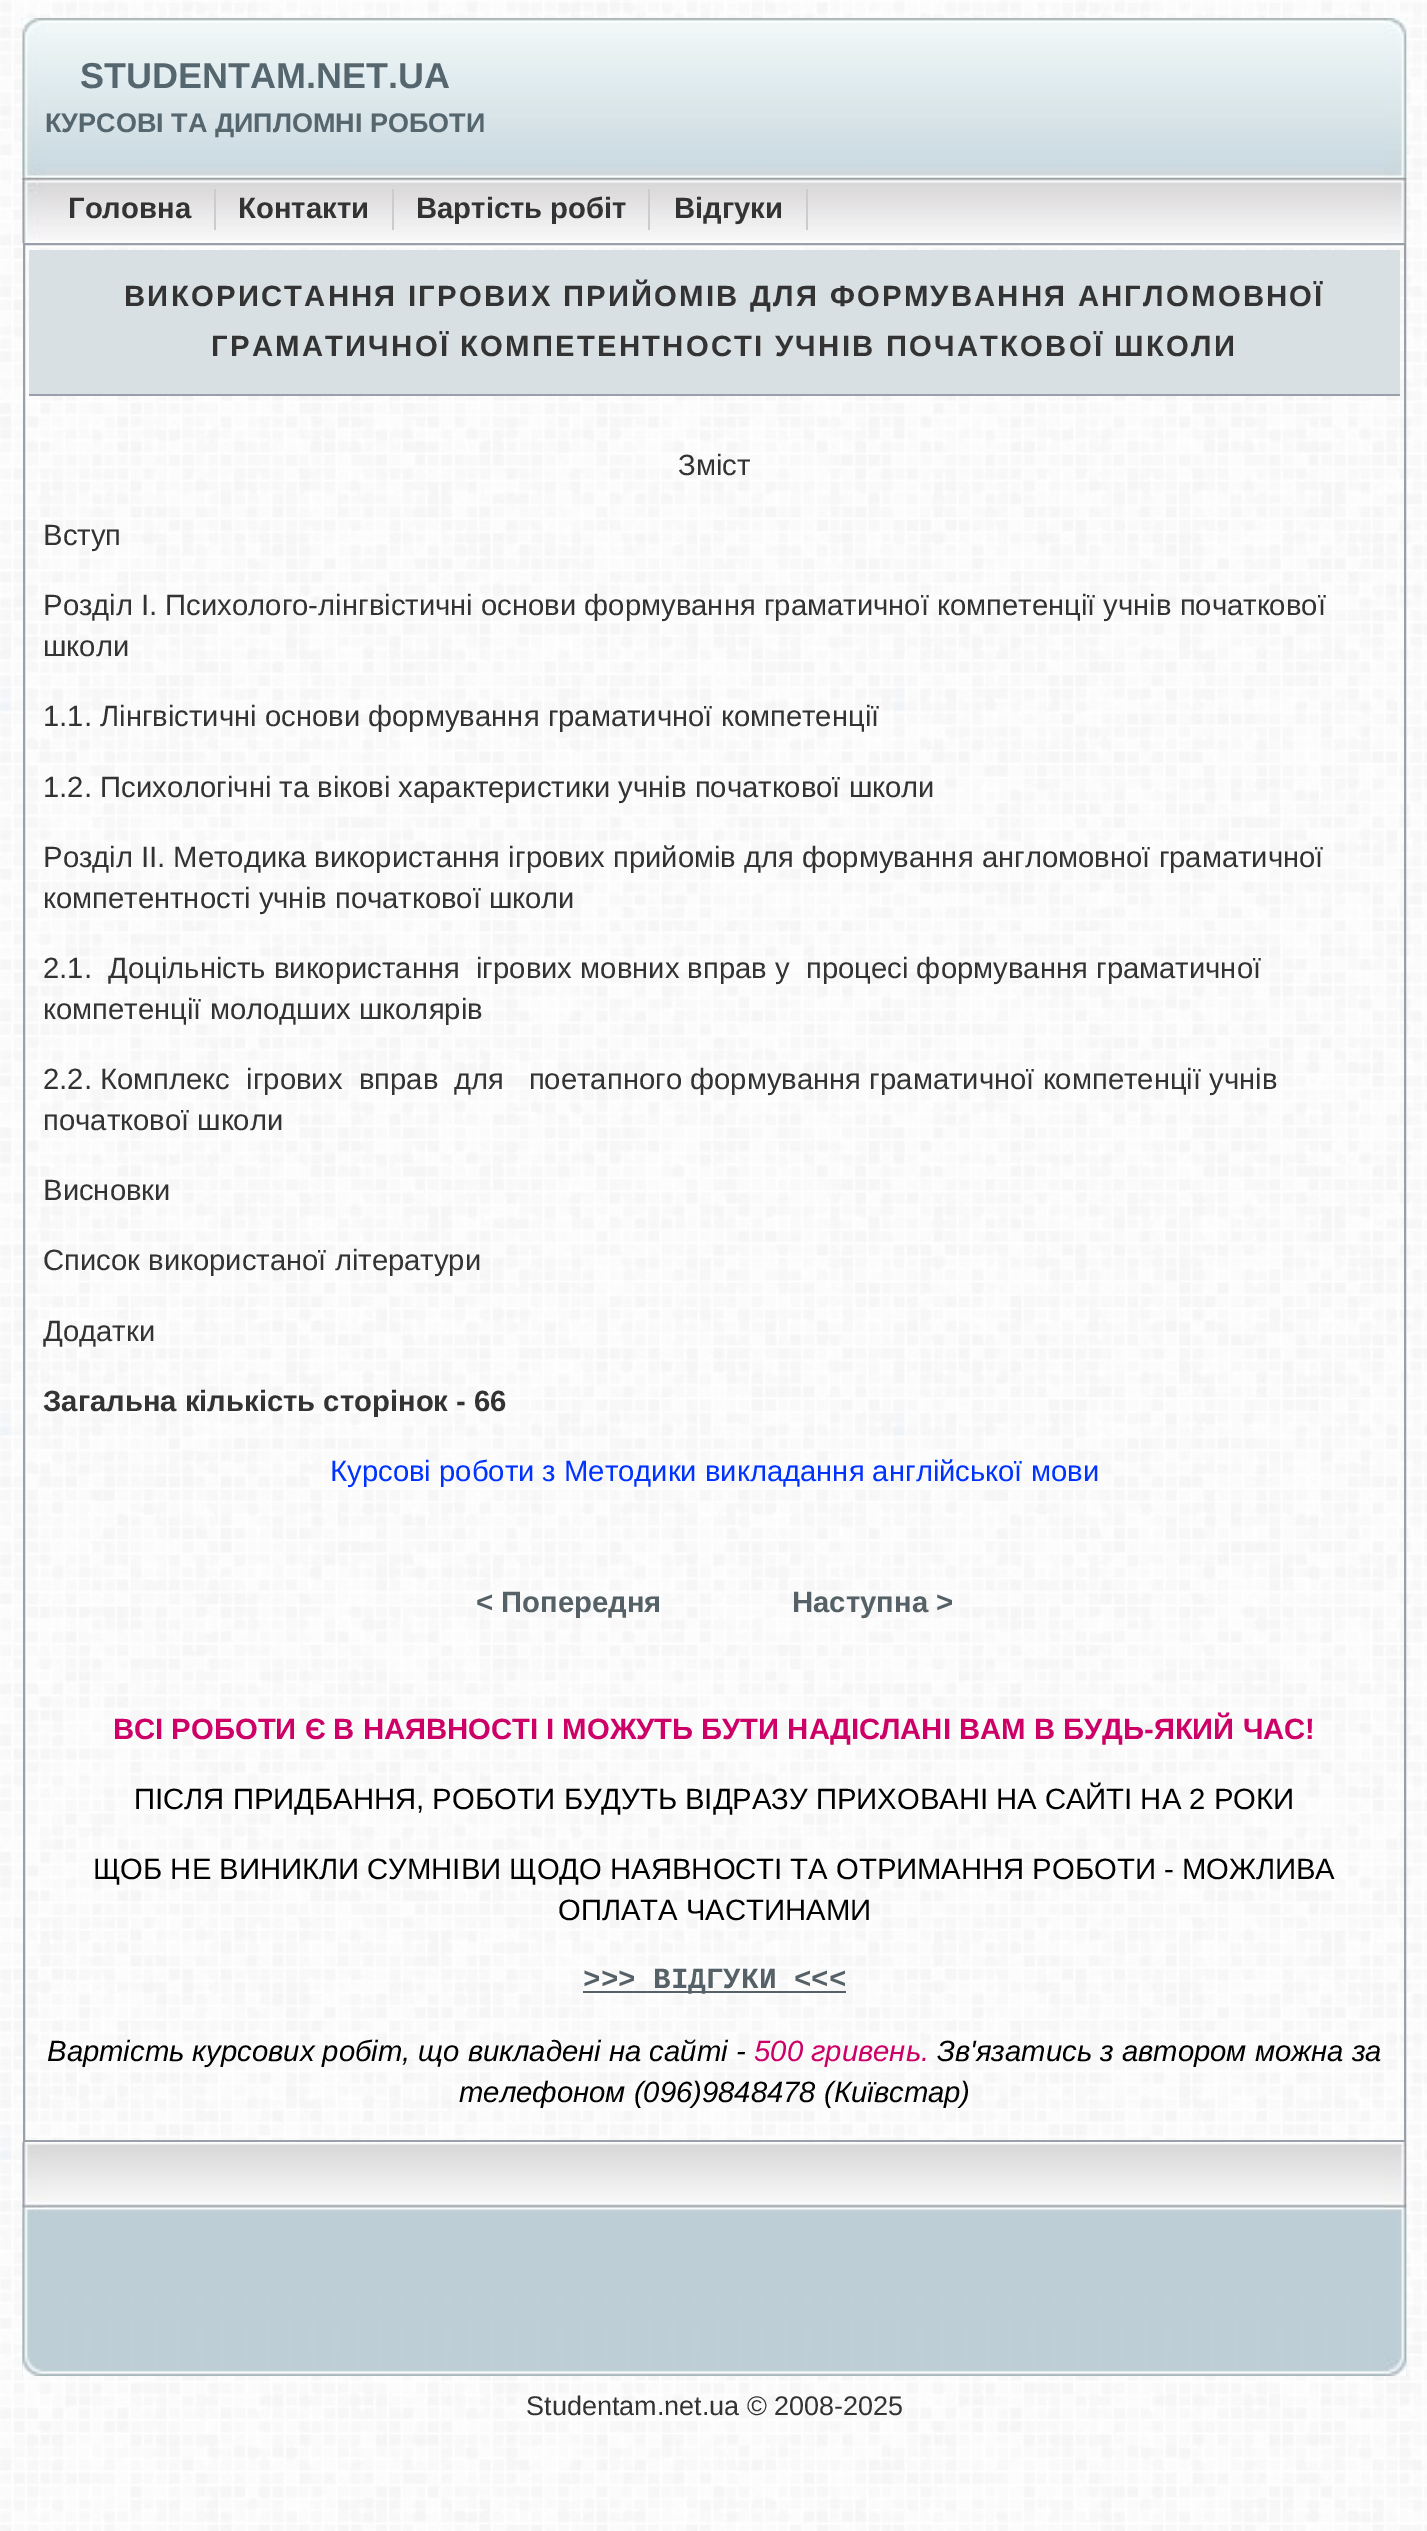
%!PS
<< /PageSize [1427 2531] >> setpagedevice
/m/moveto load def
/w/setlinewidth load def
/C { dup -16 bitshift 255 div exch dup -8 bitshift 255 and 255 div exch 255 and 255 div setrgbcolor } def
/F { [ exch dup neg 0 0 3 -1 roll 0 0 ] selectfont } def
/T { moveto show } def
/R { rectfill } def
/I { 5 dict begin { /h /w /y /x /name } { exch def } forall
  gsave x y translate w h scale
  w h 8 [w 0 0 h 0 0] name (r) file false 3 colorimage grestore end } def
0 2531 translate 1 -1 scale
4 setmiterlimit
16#FFFFFF C
0 0 1427 2531 R
(1.rgb) 0 0 1427 2531 I
(2.rgb) 22 18 1385 160 I
(5.rgb) 22 177 1385 66 I
(3.rgb) 22 18 23 160 I
/LiberationSans-Bold 36 F
16#56666E C
(STUDENTAM.NET.UA) 80 88 T
/LiberationSans-Bold 27 F
(КУРСОВІ ТА ДИПЛОМНІ РОБОТИ) 45 132 T
(4.rgb) 1383 18 24 160 I
(6.rgb) 22 177 23 66 I
16#CCCCCC C
214 189 2 41 R
/LiberationSans-Bold 29.25 F
16#333333 C
(Головна) 68 218 T
16#CCCCCC C
392 189 2 41 R
16#333333 C
(Контакти) 238 218 T
16#CCCCCC C
648 189 2 41 R
16#333333 C
(Вартість робіт) 416 218 T
16#CCCCCC C
806 189 2 41 R
16#333333 C
(Відгуки) 674 218 T
(7.rgb) 1383 177 24 66 I
16#D8E0E4 C
29 250 1371 144 R
16#99A0AA C
29 394 1371 2 R
16#556166 C
583 1991 263 2 R
16#99A0AA C
2 w
24 244 1381 1897 rectstroke
16#333333 C
124 306 m 2.25 0 (ВИКОРИСТАННЯ ІГРОВИХ ПРИЙОМІВ ДЛЯ ФОРМУВАННЯ АНГЛОМОВНОЇ) ashow
211 356 m 2.25 0 (ГРАМАТИЧНОЇ КОМПЕТЕНТНОСТІ УЧНІВ ПОЧАТКОВОЇ ШКОЛИ) ashow
/LiberationSans-Regular 29.25 F
(Зміст) 678 475 T
(Вступ) 43 545 T
(Розділ І. Психолого-лінгвістичні основи формування граматичної компетенції учнів початкової) 43 615 T
(школи) 43 656 T
(1.1. Лінгвістичні основи формування граматичної компетенції) 43 726 T
(1.2. Психологічні та вікові характеристики учнів початкової школи) 43 797 T
(Розділ ІІ. Методика використання ігрових прийомів для формування англомовної граматичної) 43 867 T
(компетентності учнів початкової школи) 43 908 T
(2.1.  Доцільність використання  ігрових мовних вправ у  процесі формування граматичної) 43 978 T
(компетенції молодших школярів) 43 1019 T
(2.2. Комплекс  ігрових  вправ  для   поетапного формування граматичної компетенції учнів) 43 1089 T
(початкової школи) 43 1130 T
(Висновки) 43 1200 T
(Список використаної літератури) 43 1270 T
(Додатки) 43 1341 T
/LiberationSans-Bold 29.25 F
(Загальна кількість сторінок - 66) 43 1411 T
/LiberationSans-Regular 29.25 F
16#0033FF C
(Курсові роботи з Методики викладання англійської мови) 330 1481 T
/LiberationSans-Bold 29.25 F
16#556166 C
(< Попередня) 476 1612 T
(Наступна >) 792 1612 T
16#CC0066 C
(ВСІ РОБОТИ Є В НАЯВНОСТІ І МОЖУТЬ БУТИ НАДІСЛАНІ ВАМ В БУДЬ-ЯКИЙ ЧАС!) 113 1739 T
/LiberationSans-Regular 29.25 F
16#000000 C
(ПІСЛЯ ПРИДБАННЯ, РОБОТИ БУДУТЬ ВІДРАЗУ ПРИХОВАНІ НА САЙТІ НА 2 РОКИ) 134 1809 T
(ЩОБ НЕ ВИНИКЛИ СУМНІВИ ЩОДО НАЯВНОСТІ ТА ОТРИМАННЯ РОБОТИ - МОЖЛИВА) 93 1879 T
(ОПЛАТА ЧАСТИНАМИ) 558 1920 T
/LiberationMono-Bold 29.25 F
16#556166 C
(>>> ВІДГУКИ <<<) 583 1988 T
/LiberationSans-Italic 29.25 F
16#000000 C
(Вартість курсових робіт, що викладені на сайті -) 47 2061 T
16#CC0066 C
(500 гривень.) 754 2061 T
16#000000 C
(Зв'язатись з автором можна за) 937 2061 T
(телефоном \(096\)9848478 \(Київстар\)) 459 2102 T
(8.rgb) 22 2142 1385 234 I
(9.rgb) 22 2142 23 234 I
(10.rgb) 1384 2142 23 234 I
/LiberationSans-Regular 27 F
16#333333 C
(Studentam.net.ua © 2008-2025) 526 2415 T
showpage
